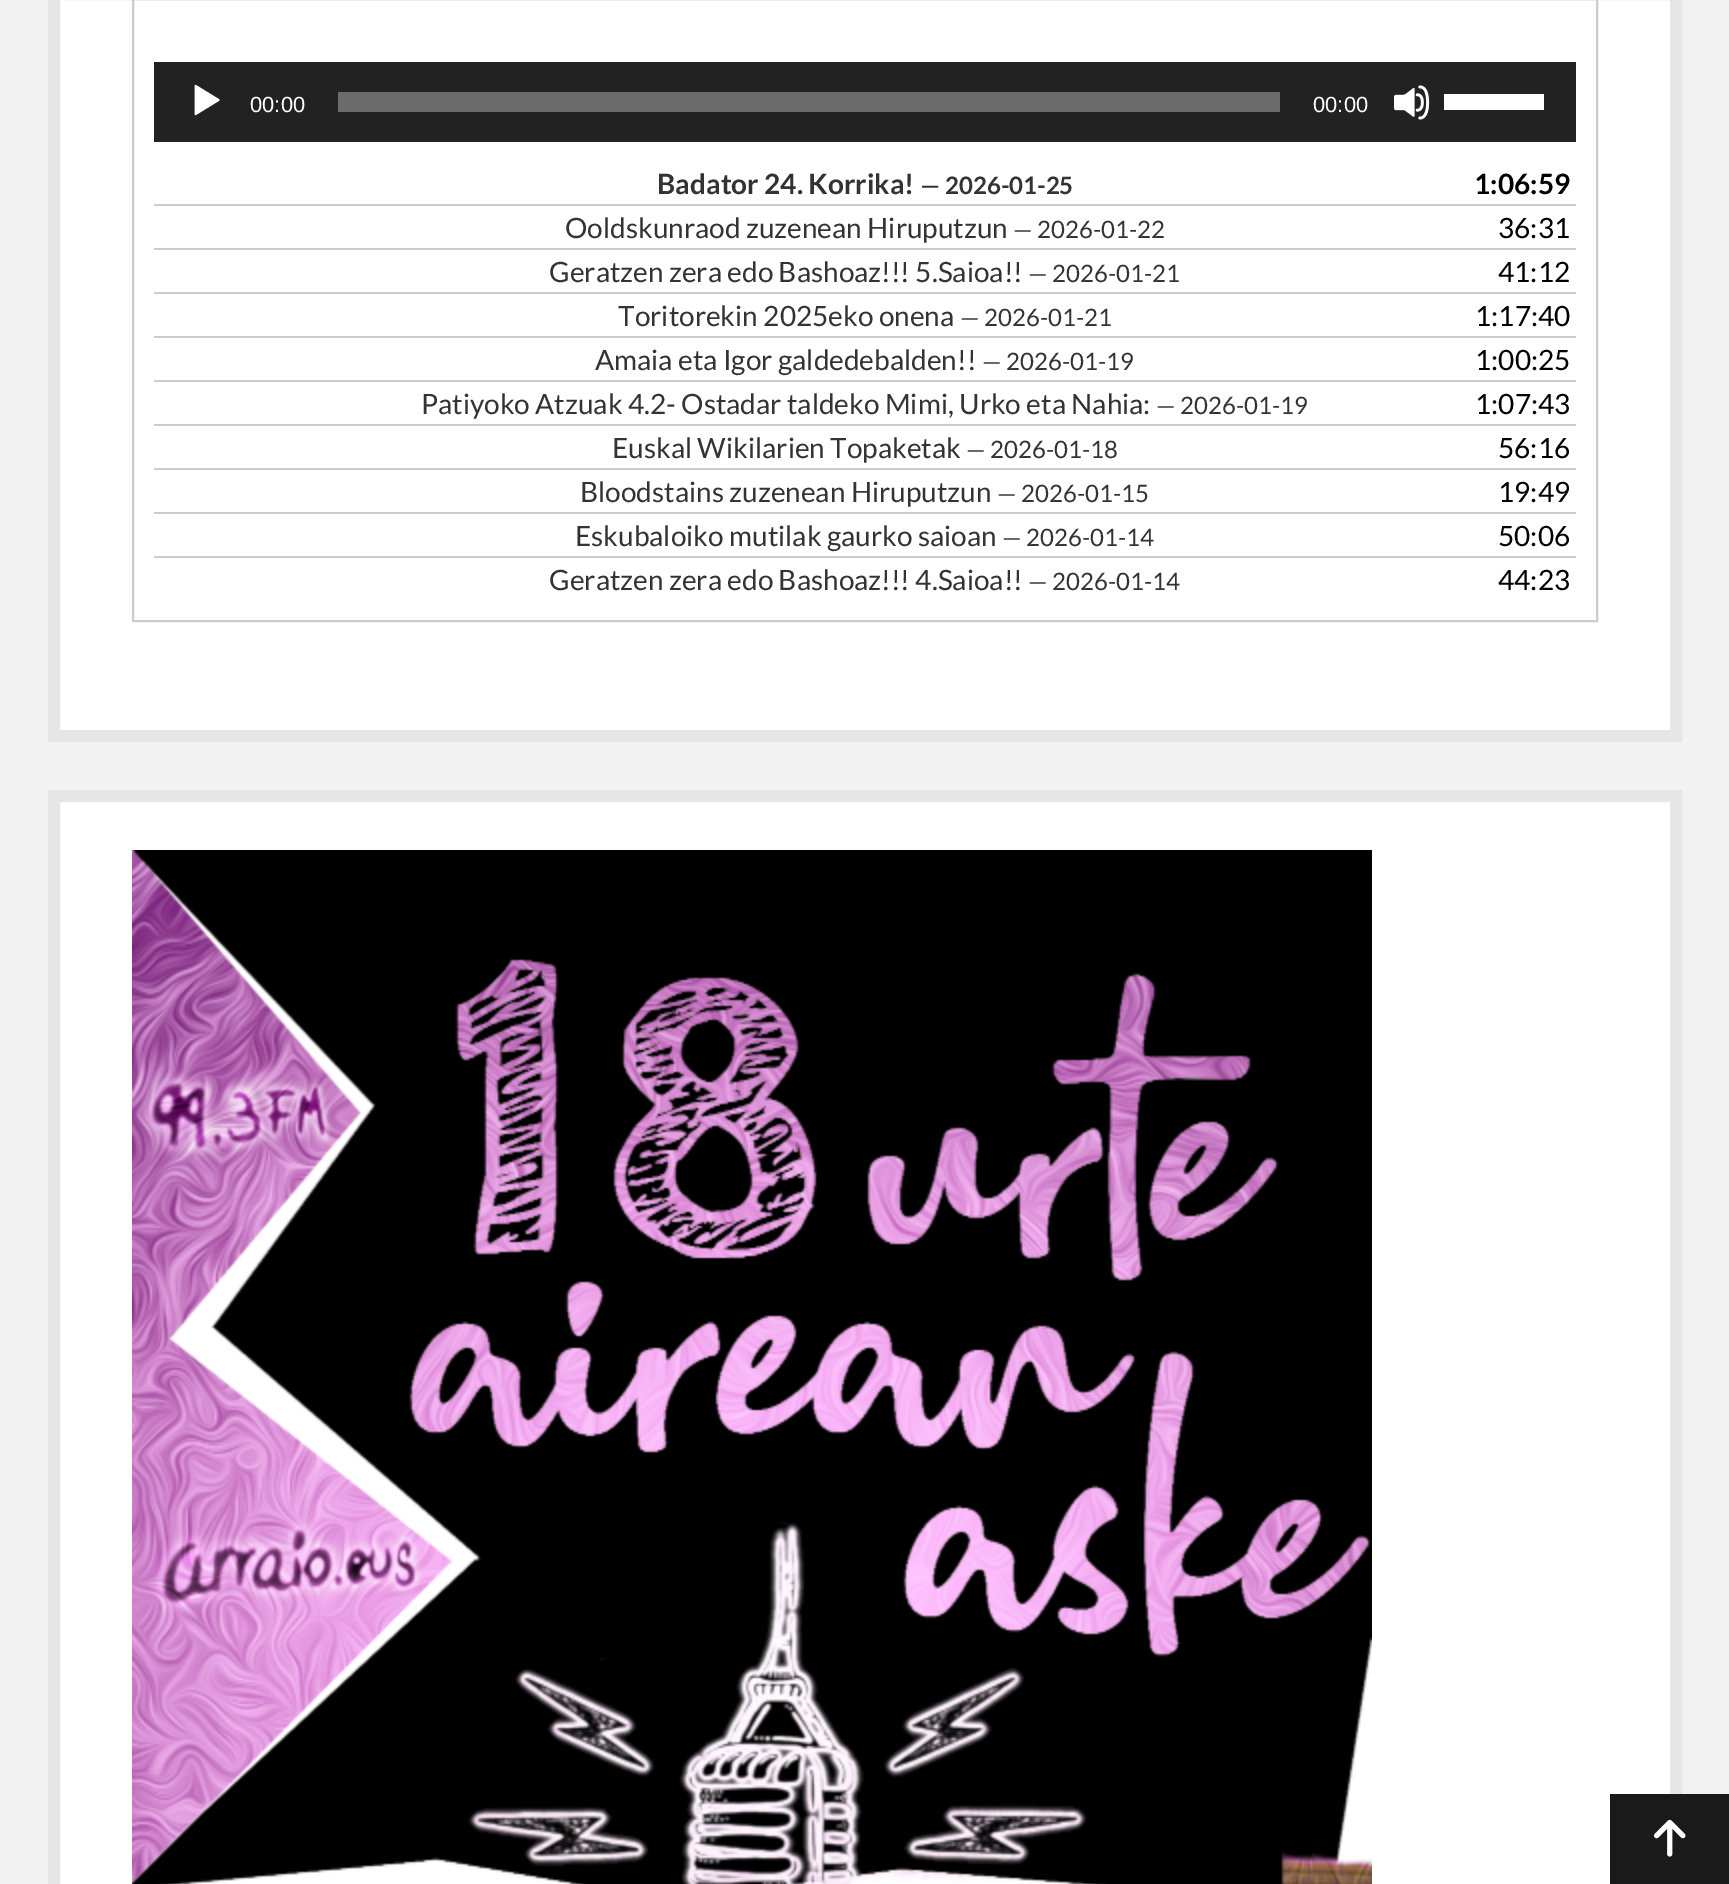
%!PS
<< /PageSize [1729 1884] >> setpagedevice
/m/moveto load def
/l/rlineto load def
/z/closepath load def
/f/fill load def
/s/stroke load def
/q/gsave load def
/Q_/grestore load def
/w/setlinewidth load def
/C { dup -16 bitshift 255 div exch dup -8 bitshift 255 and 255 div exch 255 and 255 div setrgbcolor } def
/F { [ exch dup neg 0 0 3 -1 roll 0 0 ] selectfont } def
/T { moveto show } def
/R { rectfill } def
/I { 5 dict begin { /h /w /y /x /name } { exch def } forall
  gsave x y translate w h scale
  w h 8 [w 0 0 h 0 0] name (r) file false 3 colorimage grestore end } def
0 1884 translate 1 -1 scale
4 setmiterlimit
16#F2F2F2 C
0 0 1729 1884 R
16#FFFFFF C
54 -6 m 1622 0 l 0 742 l -1622 0 l z q f Q_
16#E6E6E6 C
12 w
s
16#CCCCCC C
2 w
133 -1 1464 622 rectstroke
16#222222 C
154 62 1422 80 R
(1.rgb) 194 84 26 32 I
/LiberationSans-Regular 22 F
16#FFFFFF C
(00:00) 250 112 T
16#6B6B6B C
338 92 942 20 R
16#FFFFFF C
(00:00) 1313 112 T
(2.rgb) 1394 85 36 35 I
1444 94 100 16 R
16#CCCCCC C
154 204 1422 2 R
/Lato-Bold 28 F
16#333333 C
(Badator 24. Korrika!) 657 194 T
/Lato-Bold 24 F
(— 2026-01-25) 920 194 T
/Lato-Bold 28 F
16#000000 C
(1:06:59) 1474 194 T
16#CCCCCC C
154 248 1422 2 R
/Lato-Regular 28 F
16#333333 C
(Ooldskunraod zuzenean Hiruputzun) 565 238 T
/Lato-Regular 24 F
(— 2026-01-22) 1013 238 T
/Lato-Regular 28 F
16#000000 C
(36:31) 1498 238 T
16#CCCCCC C
154 292 1422 2 R
16#333333 C
(Geratzen zera edo Bashoaz!!! 5.Saioa!!) 549 282 T
/Lato-Regular 24 F
(— 2026-01-21) 1028 282 T
/Lato-Regular 28 F
16#000000 C
(41:12) 1498 282 T
16#CCCCCC C
154 336 1422 2 R
16#333333 C
(Toritorekin 2025eko onena) 618 326 T
/Lato-Regular 24 F
(— 2026-01-21) 960 326 T
/Lato-Regular 28 F
16#000000 C
(1:17:40) 1475 326 T
16#CCCCCC C
154 380 1422 2 R
16#333333 C
(Amaia eta Igor galdedebalden!!) 595 370 T
/Lato-Regular 24 F
(— 2026-01-19) 982 370 T
/Lato-Regular 28 F
16#000000 C
(1:00:25) 1475 370 T
16#CCCCCC C
154 424 1422 2 R
16#333333 C
(Patiyoko Atzuak 4.2- Ostadar taldeko Mimi, Urko eta Nahia:) 421 414 T
/Lato-Regular 24 F
(— 2026-01-19) 1156 414 T
/Lato-Regular 28 F
16#000000 C
(1:07:43) 1475 414 T
16#CCCCCC C
154 468 1422 2 R
16#333333 C
(Euskal Wikilarien Topaketak) 612 458 T
/Lato-Regular 24 F
(— 2026-01-18) 966 458 T
/Lato-Regular 28 F
16#000000 C
(56:16) 1498 458 T
16#CCCCCC C
154 512 1422 2 R
16#333333 C
(Bloodstains zuzenean Hiruputzun) 580 502 T
/Lato-Regular 24 F
(— 2026-01-15) 997 502 T
/Lato-Regular 28 F
16#000000 C
(19:49) 1498 502 T
16#CCCCCC C
154 556 1422 2 R
16#333333 C
(Eskubaloiko mutilak gaurko saioan) 575 546 T
/Lato-Regular 24 F
(— 2026-01-14) 1002 546 T
/Lato-Regular 28 F
16#000000 C
(50:06) 1498 546 T
16#333333 C
(Geratzen zera edo Bashoaz!!! 4.Saioa!!) 549 590 T
/Lato-Regular 24 F
(— 2026-01-14) 1028 590 T
/Lato-Regular 28 F
16#000000 C
(44:23) 1498 590 T
16#FFFFFF C
54 796 m 1622 0 l 0 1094 l -1622 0 l z q f Q_
16#E6E6E6 C
12 w
s
(3.rgb) 132 850 1240 1034 I
16#1A1A1A C
1610 1794 119 90 R
(4.rgb) 1654 1819 32 38 I
showpage
